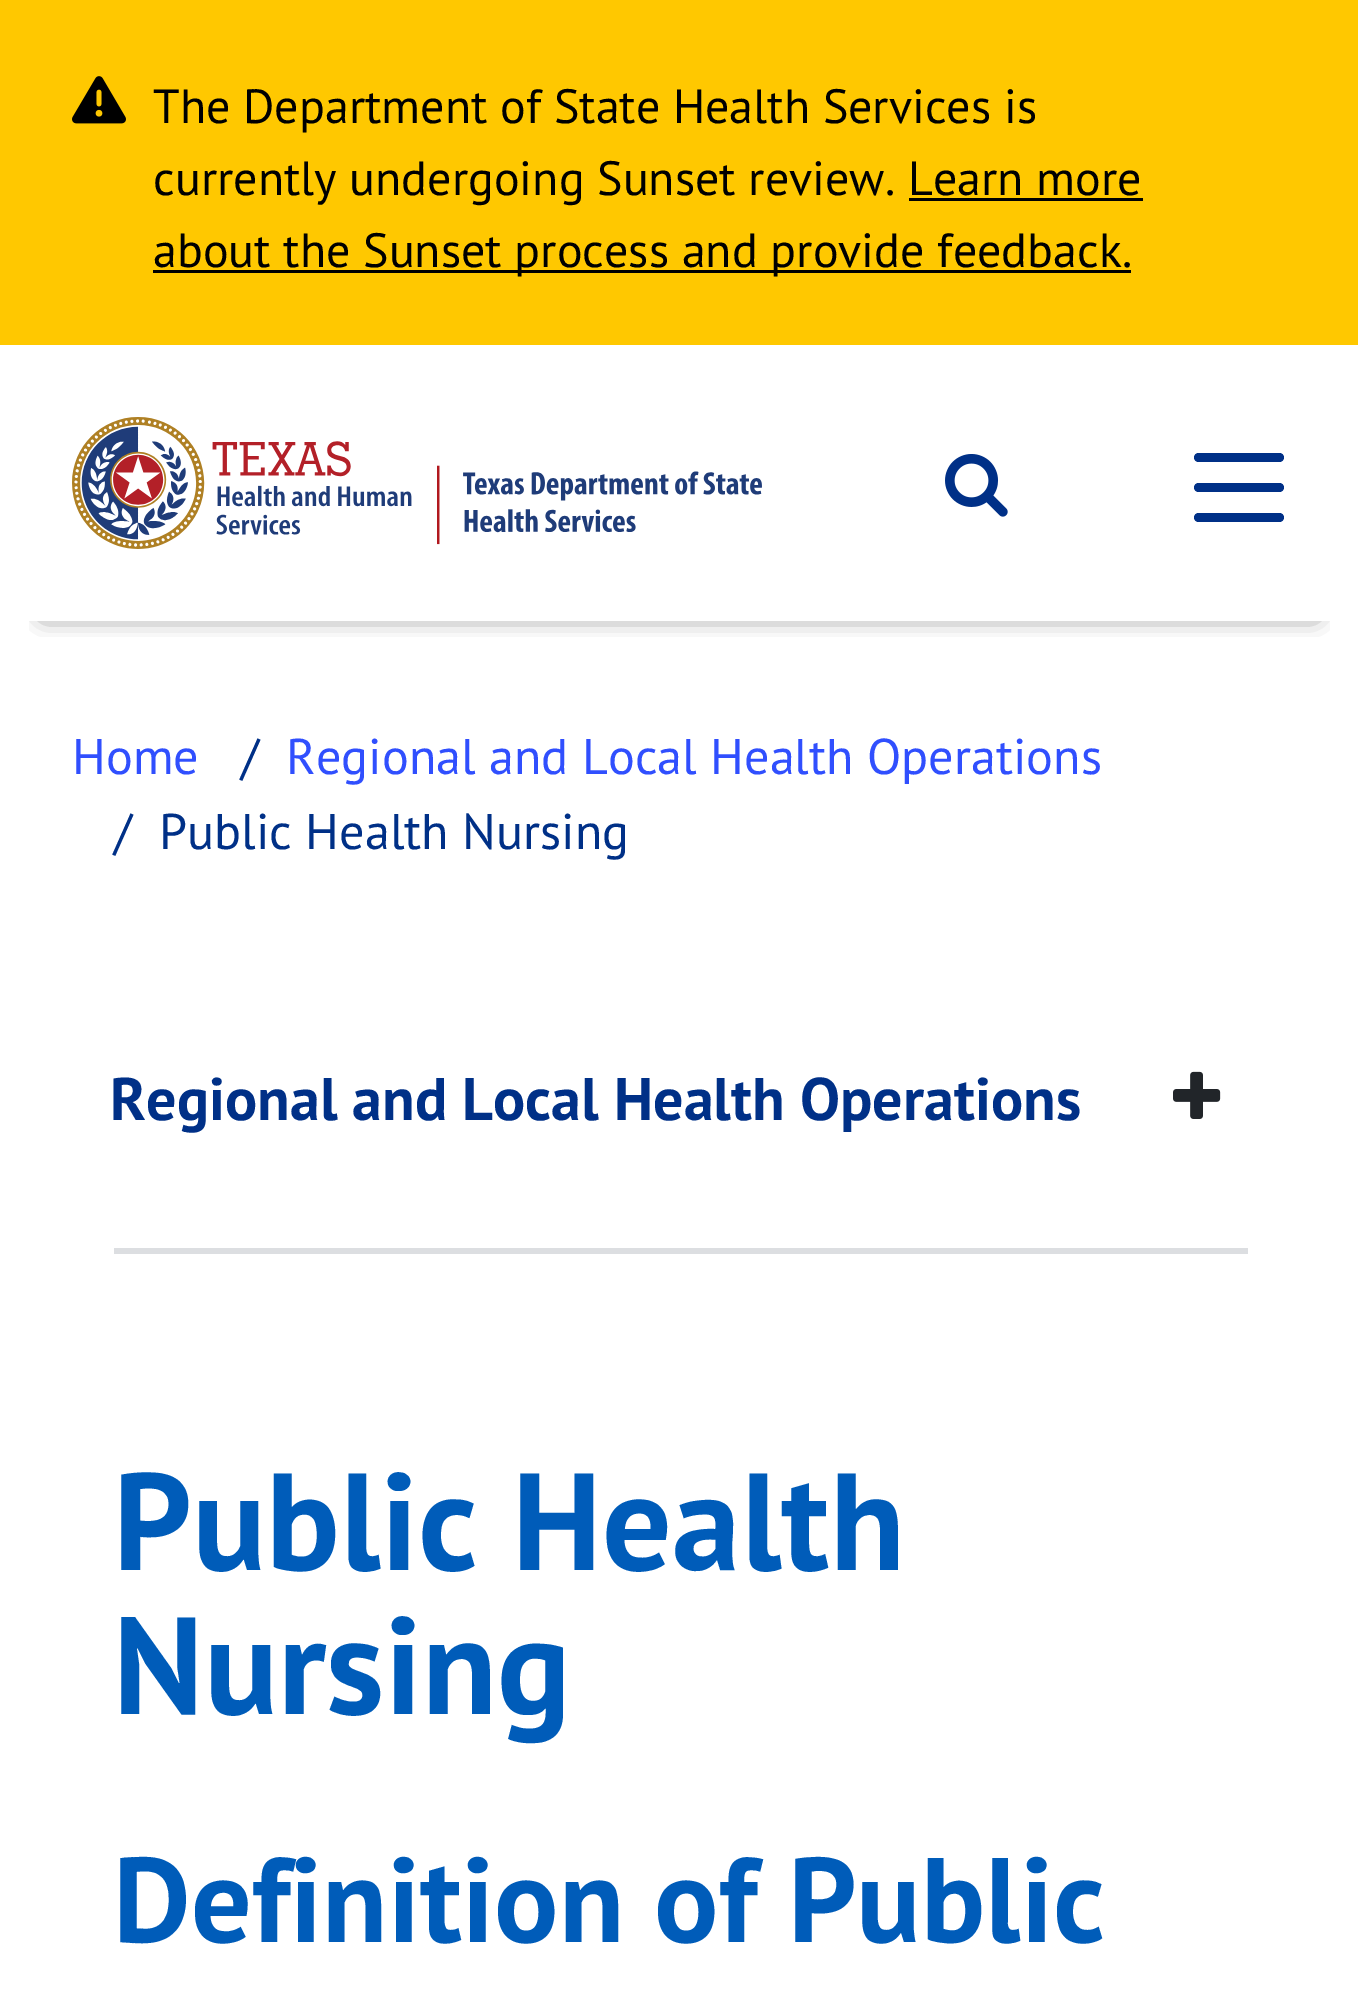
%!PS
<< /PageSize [1358 2003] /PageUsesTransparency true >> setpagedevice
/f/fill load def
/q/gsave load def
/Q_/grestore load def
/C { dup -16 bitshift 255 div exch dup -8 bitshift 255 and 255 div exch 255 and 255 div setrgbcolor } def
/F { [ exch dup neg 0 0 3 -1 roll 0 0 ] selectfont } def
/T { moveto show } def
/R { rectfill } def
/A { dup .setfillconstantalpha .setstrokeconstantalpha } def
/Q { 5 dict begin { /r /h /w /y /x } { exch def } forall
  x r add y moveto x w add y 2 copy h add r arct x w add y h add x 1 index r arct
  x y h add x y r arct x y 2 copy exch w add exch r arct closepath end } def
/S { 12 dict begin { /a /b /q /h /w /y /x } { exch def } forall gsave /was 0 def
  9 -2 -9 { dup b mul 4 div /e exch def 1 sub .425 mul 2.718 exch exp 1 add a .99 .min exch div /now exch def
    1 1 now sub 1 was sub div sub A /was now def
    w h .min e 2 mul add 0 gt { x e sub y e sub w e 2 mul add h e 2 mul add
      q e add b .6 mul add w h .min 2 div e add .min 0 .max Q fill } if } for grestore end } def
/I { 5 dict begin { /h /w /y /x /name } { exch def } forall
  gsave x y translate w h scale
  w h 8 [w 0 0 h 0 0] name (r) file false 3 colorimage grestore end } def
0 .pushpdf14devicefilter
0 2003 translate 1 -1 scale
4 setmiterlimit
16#FFFFFF C
0 0 1358 2003 R
q
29 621 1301 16 rectclip
16#111111 C
45 81 1269 531 0 12 1 S
Q_
16#FFC800 C
0 0 1358 345 R
(1.rgb) 72 76 54 48 I
/PTSans-Regular 48 F
16#000000 C
(The Department of State Health Services is) 153 123 T
(currently undergoing Sunset review. Learn more) 153 195 T
153 270 978 3 R
(about the Sunset process and provide feedback.) 153 267 T
909 198 234 3 R
(2.rgb) 72 417 690 132 I
(3.rgb) 945 454 63 63 I
16#003087 C
1194 453 90 9 4.5 Q f
1194 483 90 9 4.5 Q f
1194 513 90 9 4.5 Q f
/PTSans-Regular 50.2 F
16#304FFE C
(Home) 72 774 T
16#003087 C
(/) 241 774 T
16#304FFE C
(Regional and Local Health Operations) 286 774 T
16#003087 C
(/) 114 849 T
(Public Health Nursing) 159 849 T
/PTSans-Bold 60 F
(Regional and Local Health Operations) 110 1120 T
(4.rgb) 1173 1071 48 48 I
16#DCDEE1 C
114 1248 1134 6 R
/PTSans-Bold 138 F
16#005CB9 C
(Public Health) 113 1570 T
(Nursing) 113 1714 T
/PTSans-Bold 120 F
(Definition of Public) 113 1942 T
.poppdf14devicefilter showpage
